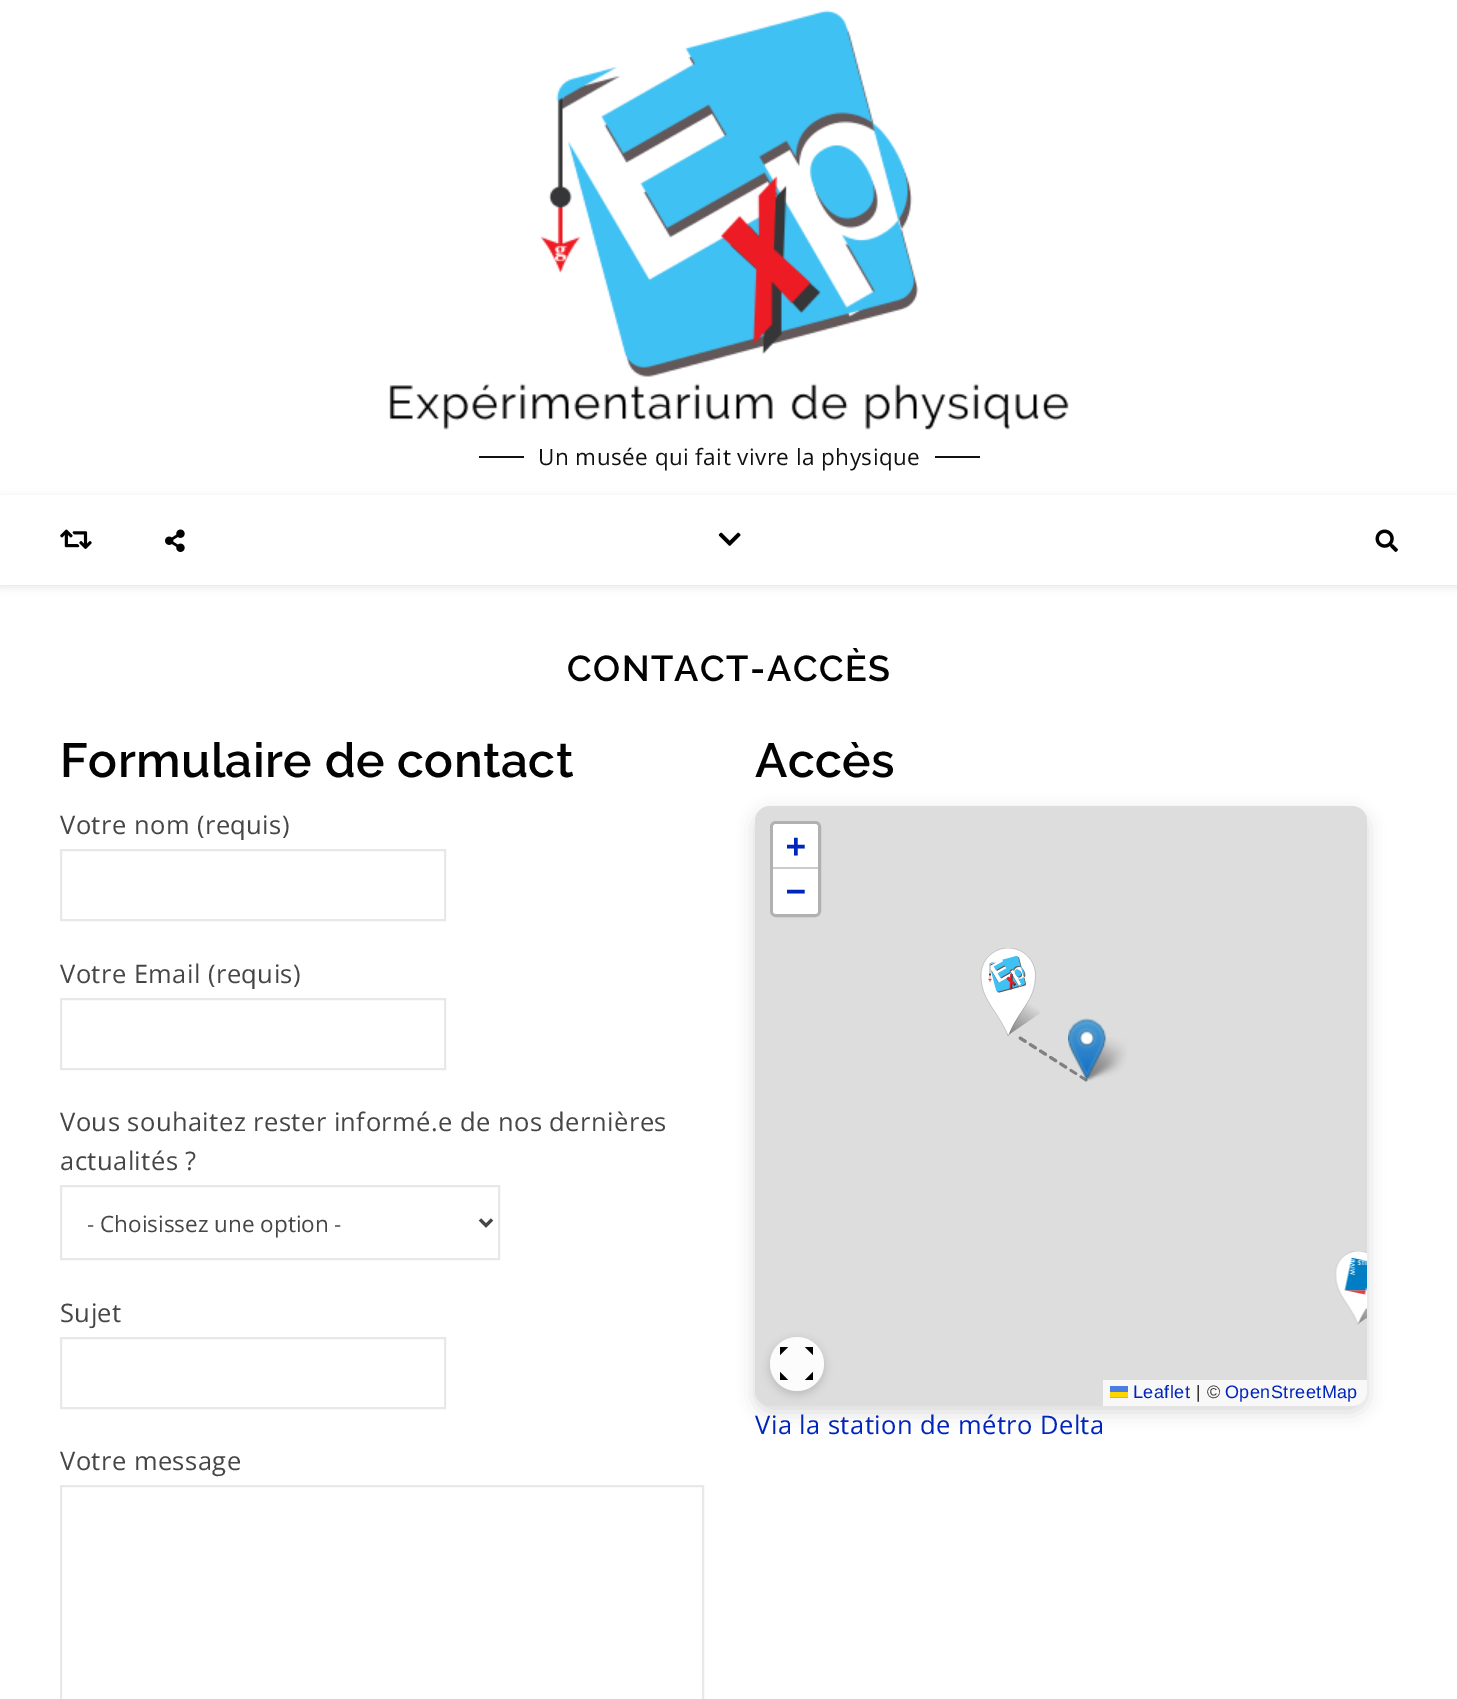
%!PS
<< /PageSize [1457 1699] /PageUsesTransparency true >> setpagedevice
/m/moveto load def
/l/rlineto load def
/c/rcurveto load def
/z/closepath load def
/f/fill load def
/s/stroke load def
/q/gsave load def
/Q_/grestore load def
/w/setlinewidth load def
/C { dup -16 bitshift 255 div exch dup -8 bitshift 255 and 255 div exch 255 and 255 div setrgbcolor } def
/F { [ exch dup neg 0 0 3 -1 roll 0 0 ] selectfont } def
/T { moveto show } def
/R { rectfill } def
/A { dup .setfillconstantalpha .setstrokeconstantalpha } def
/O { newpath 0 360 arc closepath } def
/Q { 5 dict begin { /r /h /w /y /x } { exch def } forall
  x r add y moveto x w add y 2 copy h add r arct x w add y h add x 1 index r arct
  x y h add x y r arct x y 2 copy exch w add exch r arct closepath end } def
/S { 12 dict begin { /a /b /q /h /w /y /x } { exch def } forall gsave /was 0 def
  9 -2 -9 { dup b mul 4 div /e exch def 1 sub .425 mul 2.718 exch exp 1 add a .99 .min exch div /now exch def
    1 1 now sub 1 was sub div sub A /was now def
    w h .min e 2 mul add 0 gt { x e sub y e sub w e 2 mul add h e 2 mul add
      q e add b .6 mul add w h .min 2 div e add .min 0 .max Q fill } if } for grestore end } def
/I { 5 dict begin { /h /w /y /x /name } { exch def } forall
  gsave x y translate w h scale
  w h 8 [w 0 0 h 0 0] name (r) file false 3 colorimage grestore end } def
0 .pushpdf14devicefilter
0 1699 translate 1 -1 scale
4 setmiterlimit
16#FFFFFF C
0 0 1457 1699 R
(1.rgb) 389 10 680 420 I
16#111111 C
479 456 45 2 R
/OpenSans-Regular 22.5 F
538 465 m .45 0 (Un musée qui fait vivre la physique) ashow
935 456 45 2 R
q
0 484 m 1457 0 l 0 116 l -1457 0 l z 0 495 m 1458 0 l 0 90 l -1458 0 l z eoclip newpath
16#000000 C
0 497 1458 90 0 4 .1 S
Q_
(2.rgb) 60 529 32 20 I
(3.rgb) 165 529 20 23 I
(4.rgb) 718 532 23 14 I
(5.rgb) 1375 529 23 23 I
/Raleway-SemiBold 36 F
16#030303 C
567 681 m 1.5 0 (CONTACT-ACCÈS) ashow
/Raleway-SemiBold 48 F
60 777 m .45 0 (Formulaire de contact) ashow
/OpenSans-Regular 25.5 F
16#464646 C
60 834 m .45 0 (Votre nom \(requis\)) ashow
16#E8E8E8 C
2 w
61 850 384 70 rectstroke
16#464646 C
60 983 m .45 0 (Votre Email \(requis\)) ashow
16#E8E8E8 C
61 999 384 70 rectstroke
16#464646 C
60 1131 m .45 0 (Vous souhaitez rester informé.e de nos dernières) ashow
60 1170 m .45 0 (actualités ?) ashow
16#E8E8E8 C
61 1186 438 73 rectstroke
16#464646 C
3 w
480 1219.5 m 6 6 l 6 -6 l s
/OpenSans-Regular 22.5 F
(- Choisissez une option -) 87 1232 T
/OpenSans-Regular 25.5 F
60 1322 m .45 0 (Sujet) ashow
16#E8E8E8 C
2 w
61 1338 384 70 rectstroke
16#464646 C
60 1470 m .45 0 (Votre message) ashow
16#E8E8E8 C
61 1486 642 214 rectstroke
/Raleway-SemiBold 48 F
16#030303 C
755 777 m .45 0 (Accès) ashow
16#000000 C
755 812 612 600 15 9 .15 S
16#DDDDDD C
755 806 612 600 15 Q f
16#B1B1B1 C
3 w
771.5 822.5 48 93 4.5 Q s
16#FFFFFF C
776 824 m 39 0 l 1.5 0 3 1.5 3 3 c 0 42 l -45 0 l 0 -42 l 0 -1.5 1.5 -3 3 -3 c z f
16#CCCCCC C
773 867 45 2 R
/DejaVuSansMono-Bold 33 F
16#0025BA C
786 857 m .45 0 (+) ashow
16#FFFFFF C
773 869 m 45 0 l 0 42 l 0 1.5 -1.5 3 -3 3 c -39 0 l -1.5 0 -3 -1.5 -3 -3 c z f
16#0025BA C
786 902 m .45 0 (−) ashow
0.8 A
16#FFFFFF C
1103 1380 m 264 0 l 0 11 l 0 8.5 -6.5 15 -15 15 c -249 0 l z f
/LiberationSans-Regular 18 F
1 A
16#0025BA C
1133 1398 m .45 0 (Leaflet) ashow
16#4C7BE1 C
1110 1386 18 6 R
16#FFD500 C
1110 1392 18 5 R
16#E0BC00 C
1110 1397 18 1 R
16#333333 C
1196 1398 m .45 0 (| ©) ashow
16#0025BA C
1225 1398 m .45 0 (OpenStreetMap) ashow
(6.rgb) 980 948 61 88 I
16#808080 C
1 setlinecap
1 setlinejoin
[6 6] 0 setdash
1086 1080 m -66 -42 l s
(9.rgb) 1081 1037 46 44 I
(7.rgb) 1068 1018 38 63 I
(8.rgb) 1334 1251 33 74 I
q
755 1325 m 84 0 l 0 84 l -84 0 l z 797 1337 m 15 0 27 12 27 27 c 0 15 -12 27 -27 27 c -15 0 -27 -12 -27 -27 c 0 -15 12 -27 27 -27 c z eoclip newpath
16#000000 C
770 1340 54 54 27 4.5 .15 S
Q_
0.9 A
16#FFFFFF C
797 1364 27 O f
1 A
(10.rgb) 780 1347 33 33 I
/OpenSans-Regular 25.5 F
16#0025BA C
755 1434 m .45 0 (Via la station de métro Delta) ashow
.poppdf14devicefilter showpage
